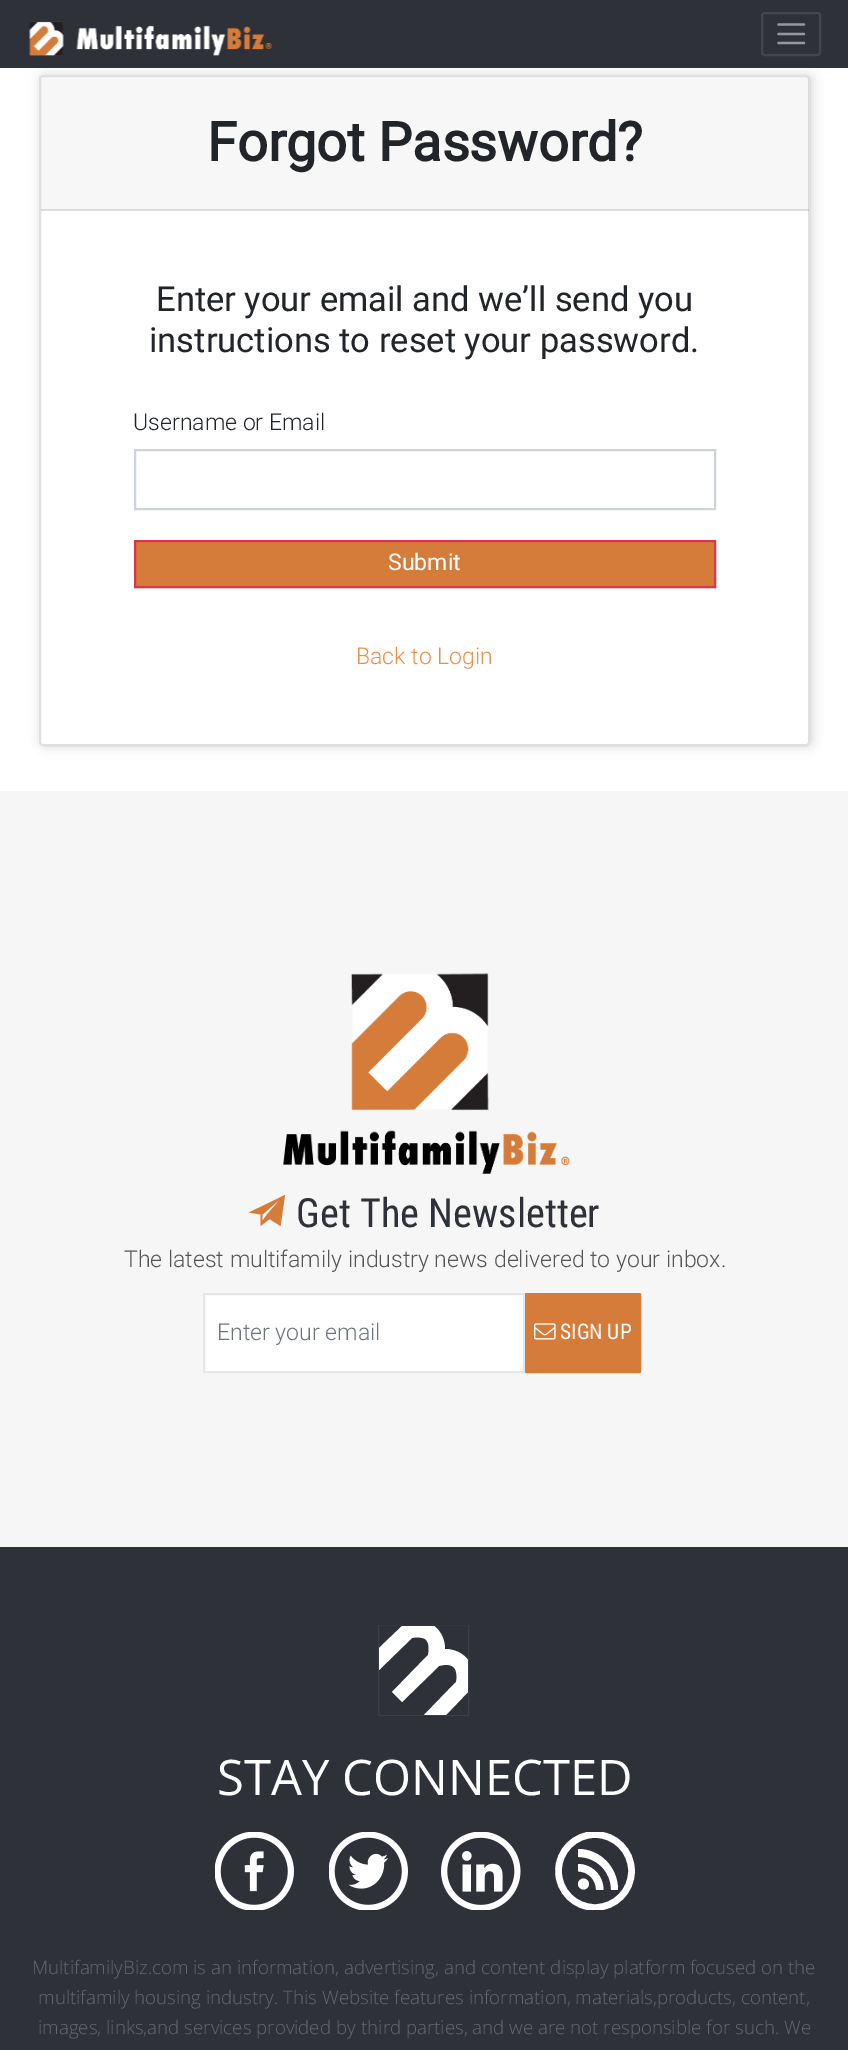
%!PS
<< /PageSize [848 2050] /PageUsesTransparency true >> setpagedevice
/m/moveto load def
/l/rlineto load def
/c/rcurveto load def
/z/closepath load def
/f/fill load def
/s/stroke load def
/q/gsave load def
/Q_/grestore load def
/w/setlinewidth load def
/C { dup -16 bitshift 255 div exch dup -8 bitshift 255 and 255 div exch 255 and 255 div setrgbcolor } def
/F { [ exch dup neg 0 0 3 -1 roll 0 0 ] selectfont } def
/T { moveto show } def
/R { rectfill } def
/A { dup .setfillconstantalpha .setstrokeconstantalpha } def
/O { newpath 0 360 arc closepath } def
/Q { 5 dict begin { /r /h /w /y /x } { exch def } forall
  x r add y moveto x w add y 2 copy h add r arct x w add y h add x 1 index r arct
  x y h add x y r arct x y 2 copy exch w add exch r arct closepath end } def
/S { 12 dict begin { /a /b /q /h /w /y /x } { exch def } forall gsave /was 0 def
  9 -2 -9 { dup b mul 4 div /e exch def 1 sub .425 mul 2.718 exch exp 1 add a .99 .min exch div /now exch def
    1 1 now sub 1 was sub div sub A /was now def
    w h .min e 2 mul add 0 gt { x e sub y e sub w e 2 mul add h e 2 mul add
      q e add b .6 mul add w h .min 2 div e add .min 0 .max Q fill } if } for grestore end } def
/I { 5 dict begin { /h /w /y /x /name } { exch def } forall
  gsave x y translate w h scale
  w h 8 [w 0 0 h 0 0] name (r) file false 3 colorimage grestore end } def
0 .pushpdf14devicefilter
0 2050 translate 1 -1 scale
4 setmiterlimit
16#FFFFFF C
0 0 848 2050 R
16#000000 C
41 75 771 671 4 6 .16 S
16#2E3137 C
0 0 848 68 R
(1.rgb) 29 21 243 35 I
16#43464B C
2 w
762 13 58 42 3 Q s
16#97989B C
2.3 w
1 setlinecap
778.5 24.5 m 25.5 0 l 778.5 34 m 25.5 0 l 778.5 43 m 25.5 0 l s
16#FFFFFF C
39 75 771 671 4 Q f
0.12 A
16#000000 C
2 w
0 setlinecap
40 76 769 669 3 Q s
0.03 A
41 77 768 133 R
0.12 A
41 209 768 2 R
/Roboto-Bold 54 F
1 A
16#212529 C
(Forgot Password?) 207 161 T
/Roboto-Regular 34.5 F
(Enter your email and we’ll send you) 156 311 T
(instructions to reset your password.) 149 352 T
/Roboto-Light 23.05 F
(Username or Email) 133 430 T
16#CED4DA C
135 450 580 59 rectstroke
16#D67C3A C
135 541 m 580 0 l 0 46 l -580 0 l z q f Q_
16#DC3545 C
s
/Roboto-Regular 23.05 F
16#FFFFFF C
(Submit) 388 570 T
/Roboto-Light 23.05 F
16#ED8E48 C
(Back to Login) 356 664 T
16#F6F6F6 C
0 791 848 756 R
(2.rgb) 283 973 287 201 I
16#D67C3A C
249 1212.5 m 11.5 2 l 0 11.5 l 9 -7 l 11 7 l 4.5 -31 l z 267 1214.5 m -4.5 6 l 0 -6 l 18 -15.5 l z f
/RobotoCondensed-Regular 40.25 F
16#2E3137 C
(Get The Newsletter) 296 1227 T
/Roboto-Light 23.05 F
16#555555 C
(The latest multifamily industry news delivered to your inbox.) 124 1267 T
16#FFFFFF C
204 1294 m 320 0 l 0 78 l -320 0 l z q f Q_
16#E6E6E6 C
s
16#6C757D C
(Enter your email) 217 1340 T
16#D67C3A C
526 1294 114 78 .5 Q q f Q_
s
(3.rgb) 534 1323 22 17 I
/RobotoCondensed-Regular 21.5 F
16#FFFFFF C
(SIGN UP) 560 1339 T
16#2E3137 C
0 1547 848 503 R
q
378 1625 92 91 rectclip
16#3D3F45 C
1 w
378.5 1624.5 90 91 rectstroke
Q_
16#FFFFFF C
468 1660 m 0 32 l -22 23 l -22 0 l 32 -33 l 1 -4 1 -9 -1 -13 c -4 -7 -16 -3 -16 -3 c -37 36 l -10 -10 l 36 -37 l 0 0 3 -12 -3 -16 c -4 -2 -9 -2 -13 -1 c -33 32 l 0 -22 l 23 -22 l 32 0 l 7 5 11 14 11 23 c 9 0 18 4 23 11 c z f
/OpenSans-Regular 49 F
(STAY CONNECTED) 217 1795 T
(4.rgb) 215 1832 79 78 I
(5.rgb) 329 1832 79 78 I
(6.rgb) 441 1832 80 78 I
q
555 1832 80 78 rectclip
6.6 w
595 1871 36.5 O s
Q_
583.5 1884 5.5 O f
578 1864 m 0 7.5 l 10 0 18 8 18 18.5 c 7.5 0 l 0 -14.5 -11.5 -26 -25.5 -26 c z f
578 1849 m 0 8 l 18 0 33 14 33 33 c 7 0 l 0 -23 -18 -41 -40 -41 c z f
/OpenSans-Light 18.7 F
16#65676B C
(MultifamilyBiz.com is an information, advertising, and content display platform focused on the) 32 1974 T
(multifamily housing industry. This Website features information, materials,products, content,) 38 2004 T
(images, links,and services provided by) 38 2034 T
(third parties, and we are not responsible for such. We) 361 2034 T
.poppdf14devicefilter showpage
